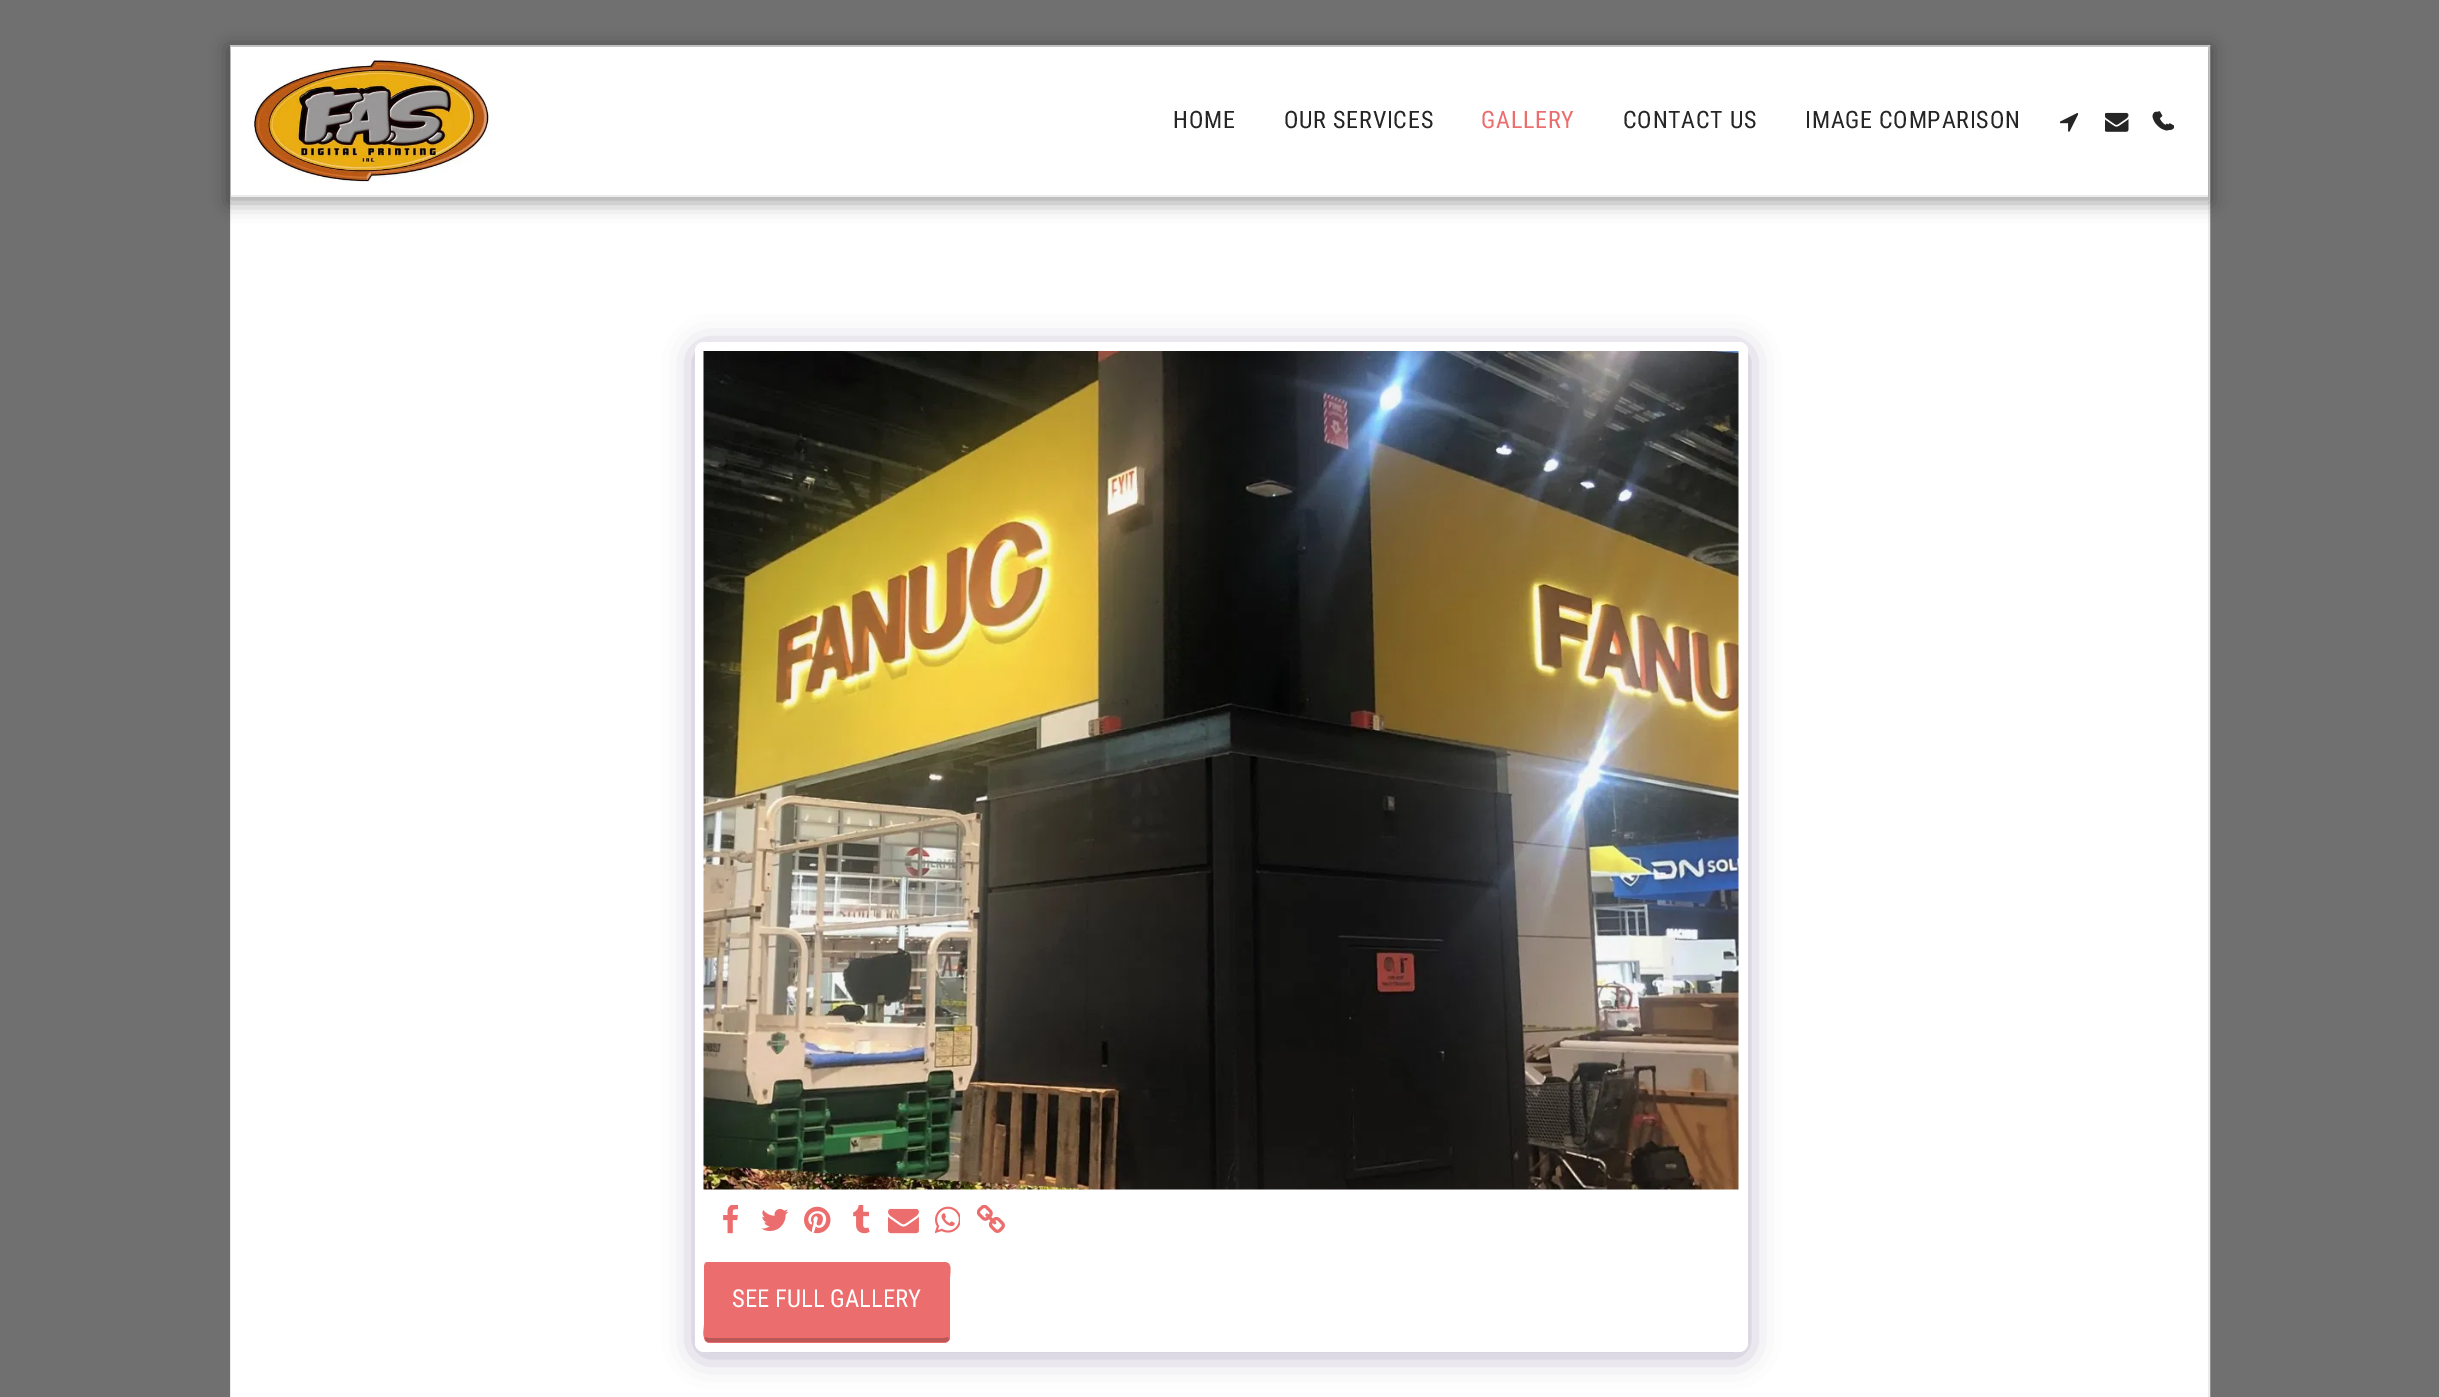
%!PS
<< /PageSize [2439 1397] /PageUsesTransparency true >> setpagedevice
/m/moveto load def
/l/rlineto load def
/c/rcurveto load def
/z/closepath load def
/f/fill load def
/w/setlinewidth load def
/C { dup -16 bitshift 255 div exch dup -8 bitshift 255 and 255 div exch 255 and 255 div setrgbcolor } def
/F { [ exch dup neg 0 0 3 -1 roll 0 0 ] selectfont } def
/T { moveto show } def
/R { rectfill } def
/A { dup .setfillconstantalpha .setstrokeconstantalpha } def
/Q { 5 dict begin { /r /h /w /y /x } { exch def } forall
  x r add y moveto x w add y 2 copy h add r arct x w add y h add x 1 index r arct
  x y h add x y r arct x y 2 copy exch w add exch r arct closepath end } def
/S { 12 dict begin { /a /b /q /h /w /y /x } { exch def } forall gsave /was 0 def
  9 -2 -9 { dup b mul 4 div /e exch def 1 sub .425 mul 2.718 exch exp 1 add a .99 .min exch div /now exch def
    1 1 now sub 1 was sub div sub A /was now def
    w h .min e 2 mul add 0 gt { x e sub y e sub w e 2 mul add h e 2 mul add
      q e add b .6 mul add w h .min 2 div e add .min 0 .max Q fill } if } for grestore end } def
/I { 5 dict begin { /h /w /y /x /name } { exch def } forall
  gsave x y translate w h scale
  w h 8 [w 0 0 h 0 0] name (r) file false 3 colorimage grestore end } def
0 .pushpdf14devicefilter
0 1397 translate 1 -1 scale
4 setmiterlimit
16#707070 C
0 0 2439 1397 R
16#EBEBEB C
2 w
231 46 1978 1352 rectstroke
16#FFFFFF C
231 197 1977 1200 R
16#000000 C
228 47 1983 156 0 9 .35 S
16#FFFFFF C
231 47 1977 148 R
16#EBEBEB C
231 195 1977 2 R
(1.rgb) 253 60 236 122 I
/RobotoCondensed-Regular 24 F
16#252525 C
1173 128 m .75 0 (HOME) ashow
1284 128 m .75 0 (OUR SERVICES) ashow
16#EB6D6D C
1481 128 m .75 0 (GALLERY) ashow
16#252525 C
1623 128 m .75 0 (CONTACT US) ashow
1805 128 m .75 0 (IMAGE COMPARISON) ashow
(2.rgb) 2060 113 18 19 I
(3.rgb) 2105 112 24 20 I
(4.rgb) 2156 111 18 20 I
(5.rgb) 2152 111 17 20 I
16#4D3F7A C
695 347 1053 1009 9 15 .4 S
16#FFFFFF C
695 342 1053 1010 9 Q f
(6.rgb) 703 351 1036 839 I
(7.rgb) 723 1205 16 29 I
(8.rgb) 761 1208 28 23 I
(9.rgb) 804 1206 27 28 I
(10.rgb) 853 1205 17 29 I
(11.rgb) 888 1208 31 26 I
(12.rgb) 935 1206 25 28 I
(13.rgb) 977 1205 28 28 I
16#EB6D6D C
704 1262 246 81 6 Q f
709 1262 m -1 0 -3 0 -4 1 c 1 1 l 1 0 2 -1 3 -1 c 235 0 l 1 0 2 1 3 1 c 1 -1 l -4 -1 l z f
948 1263 m 4 3 2 10 2 14 c 0 62 l -1 1 l -1 -3 l 0 -58 l 0 -1 2 -12 -1 -15 c z f
16#BC5757 C
949 1340 m -1 1 -3 2 -5 2 c -235 0 l -2 0 -4 -1 -4 -3 c 0 -2 l 3 1 l 236 0 l 4 -1 l z f
16#EB6D6D C
705 1263 m -1 3 l 0 59 l 0 5 -2 10 1 14 c 0 -2 l 0 -58 l 0 -1 -2 -12 1 -15 c z f
/RobotoCondensed-Regular 24.75 F
16#FFFFFF C
(SEE FULL GALLERY) 732 1307 T
.poppdf14devicefilter showpage
